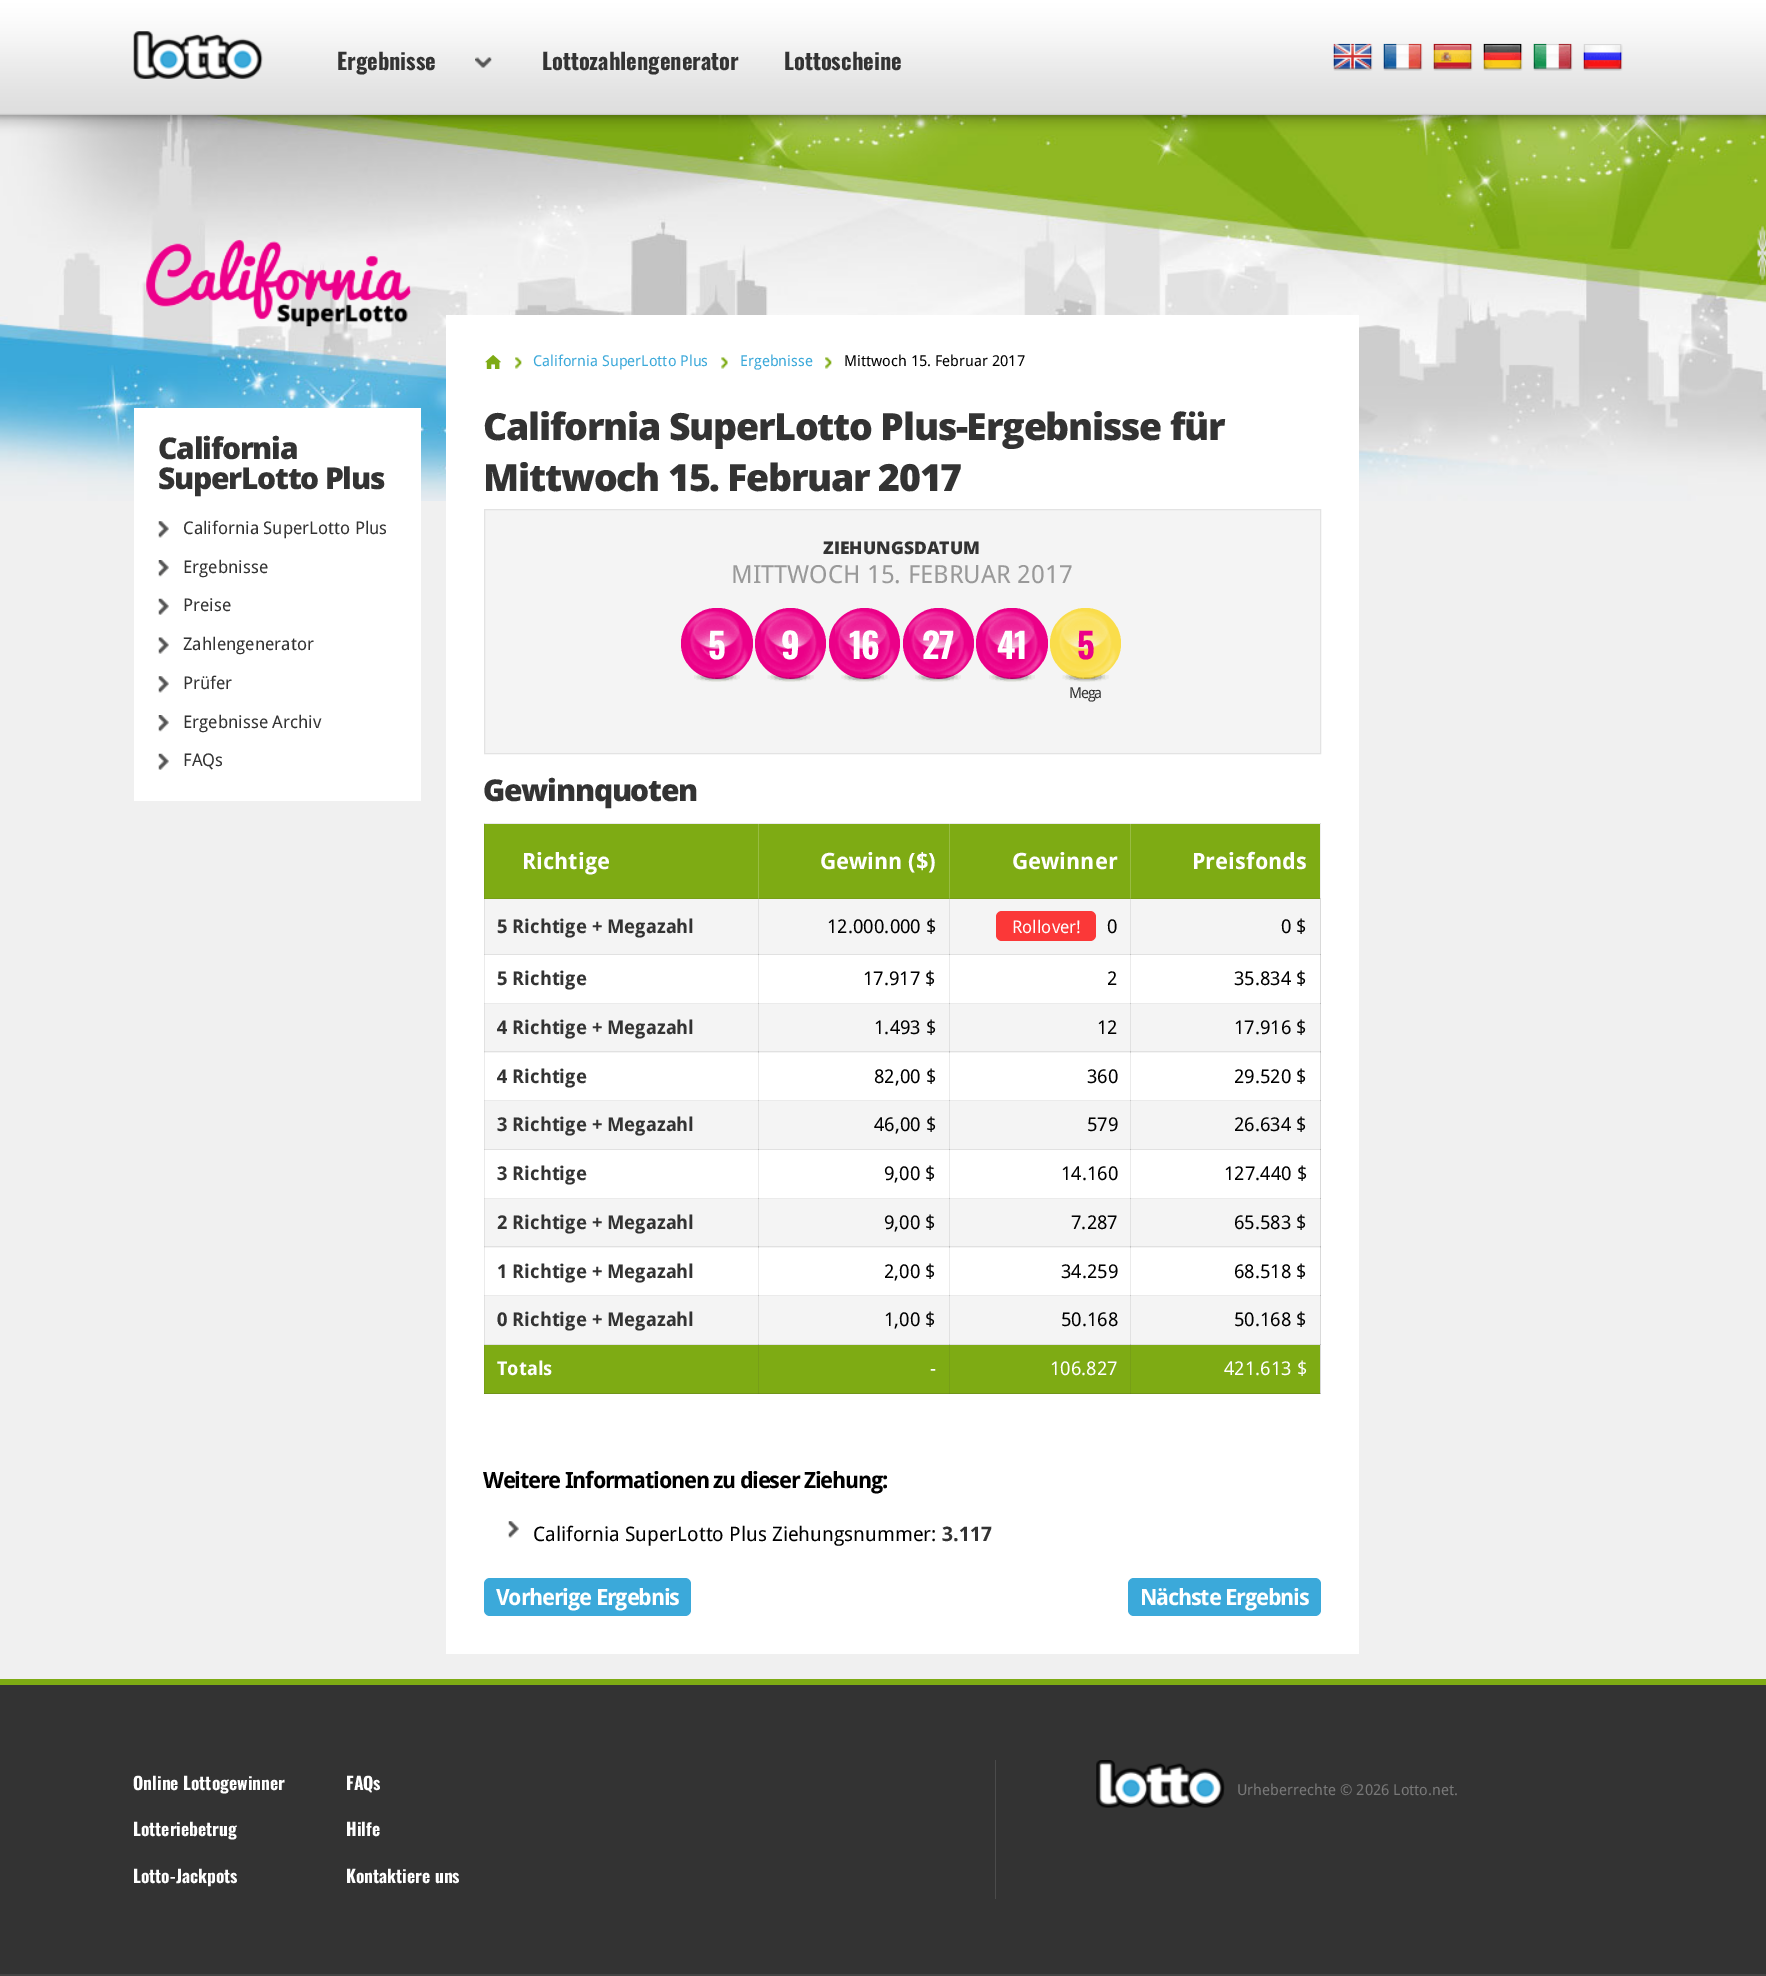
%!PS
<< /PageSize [1766 1976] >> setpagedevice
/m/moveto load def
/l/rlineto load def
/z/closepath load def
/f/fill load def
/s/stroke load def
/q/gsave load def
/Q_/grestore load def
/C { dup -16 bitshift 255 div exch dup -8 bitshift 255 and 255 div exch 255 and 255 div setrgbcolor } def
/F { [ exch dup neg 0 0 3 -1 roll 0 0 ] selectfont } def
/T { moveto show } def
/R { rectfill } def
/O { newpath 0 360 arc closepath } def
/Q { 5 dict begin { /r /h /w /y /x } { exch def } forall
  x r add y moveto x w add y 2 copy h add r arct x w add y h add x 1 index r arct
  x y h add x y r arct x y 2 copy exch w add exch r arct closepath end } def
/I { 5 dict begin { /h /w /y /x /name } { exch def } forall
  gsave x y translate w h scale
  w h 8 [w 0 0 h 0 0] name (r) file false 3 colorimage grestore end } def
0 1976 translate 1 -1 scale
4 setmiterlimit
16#F0F0F0 C
0 0 1766 1976 R
(1.rgb) 0 115 1766 386 I
(2.rgb) 0 0 1766 120 I
(3.rgb) 133 31 130 48 I
/Oswald-Bold 22.5 F
16#333333 C
(Ergebnisse) 337 70 T
(4.rgb) 475 57 17 11 I
(Lottozahlengenerator) 542 70 T
(Lottoscheine) 784 70 T
(5.rgb) 1333 43 40 28 I
(6.rgb) 1383 43 40 28 I
(7.rgb) 1433 43 40 28 I
(8.rgb) 1483 43 40 28 I
(9.rgb) 1533 43 40 28 I
(10.rgb) 1583 44 40 27 I
(11.rgb) 145 239 267 88 I
16#FFFFFF C
134 408 287 393 R
/OpenSans-ExtraBold 30 F
16#333333 C
158 459 m -1.25 0 (California) ashow
158 489 m -1.25 0 (SuperLotto Plus) ashow
(12.rgb) 158 521 11 17 I
/DroidSans-Regular 17.5 F
(California SuperLotto Plus) 183 534 T
(13.rgb) 158 560 11 17 I
(Ergebnisse) 183 573 T
(14.rgb) 158 598 11 17 I
(Preise) 183 611 T
(15.rgb) 158 637 11 17 I
(Zahlengenerator) 183 650 T
(12.rgb) 158 676 11 17 I
(Prüfer) 183 689 T
(13.rgb) 158 715 11 17 I
(Ergebnisse Archiv) 183 728 T
(14.rgb) 158 753 11 17 I
(FAQs) 183 766 T
16#FFFFFF C
446 315 913 1339 R
16#EBEBEB C
758 954 1 50 R
949 954 1 50 R
1130 954 1 50 R
758 1051 1 50 R
949 1051 1 50 R
1130 1051 1 50 R
758 1149 1 50 R
949 1149 1 50 R
1130 1149 1 50 R
758 1246 1 50 R
949 1246 1 50 R
1130 1246 1 50 R
484 1003 837 1 R
16#C8C8C8 C
758 1003 1 1 R
949 1003 1 1 R
1130 1003 1 1 R
16#EBEBEB C
484 1100 837 1 R
16#C8C8C8 C
758 1100 1 1 R
949 1100 1 1 R
1130 1100 1 1 R
16#EBEBEB C
484 1198 837 1 R
16#C8C8C8 C
758 1198 1 1 R
949 1198 1 1 R
1130 1198 1 1 R
16#EBEBEB C
484 1295 837 1 R
16#C8C8C8 C
758 1295 1 1 R
949 1295 1 1 R
1130 1295 1 1 R
16#EBEBEB C
484 955 1 340 R
16#D9D9D9 C
484 1003 1 1 R
484 1100 1 1 R
484 1198 1 1 R
484 1295 1 1 R
16#EFEFEF C
1320 823 1 76 R
16#D9D9D9 C
1320 898 1 496 R
16#C8C8C8 C
1320 1051 1 2 R
1320 1246 1 2 R
16#D3D3D3 C
1320 898 1 1 R
16#B9B9B9 C
1320 954 1 1 R
1320 1003 1 1 R
1320 1051 1 1 R
1320 1100 1 1 R
1320 1149 1 1 R
1320 1198 1 1 R
1320 1246 1 1 R
1320 1295 1 1 R
1320 1344 1 1 R
1320 1393 1 1 R
(16.rgb) 485 355 16 14 I
(17.rgb) 515 357 7 12 I
/DroidSans-Regular 15 F
16#3BA9DA C
(California SuperLotto Plus) 533 366 T
(18.rgb) 721 357 7 12 I
(Ergebnisse) 740 366 T
(19.rgb) 825 357 7 12 I
16#000000 C
(Mittwoch 15. Februar 2017) 844 366 T
/OpenSans-ExtraBold 37.5 F
16#333333 C
483 440 m -1.25 0 (California SuperLotto Plus-Ergebnisse für) ashow
483 491 m -1.25 0 (Mittwoch 15. Februar 2017) ashow
16#F4F4F4 C
484.5 509.5 m 836 0 l 0 244 l -836 0 l z q f Q_
16#E3E3E3 C
s
/OpenSans-ExtraBold 17.5 F
16#333333 C
(ZIEHUNGSDATUM) 823 554 T
/DroidSans-Regular 25 F
16#999999 C
(MITTWOCH 15. FEBRUAR 2017) 731 583 T
16#EB0088 C
681 608 72 71 35.5 Q f
(21.rgb) 694 674 46 8 I
(20.rgb) 687 611 61 64 I
/Oswald-Bold 35 F
16#FFFFFF C
708 659 m -1.25 0 (5) ashow
16#EB0088 C
790.5 643.5 35.5 O f
(23.rgb) 767 674 47 8 I
(22.rgb) 761 611 61 64 I
16#FFFFFF C
781 659 m -1.25 0 (9) ashow
16#EB0088 C
864.5 643.5 35.5 O f
(25.rgb) 841 674 47 8 I
(24.rgb) 835 611 61 64 I
16#FFFFFF C
849 659 m -1.25 0 (16) ashow
16#EB0088 C
938.5 643.5 35.5 O f
(27.rgb) 915 674 46 8 I
(26.rgb) 908 611 62 64 I
16#FFFFFF C
922 659 m -1.25 0 (27) ashow
16#EB0088 C
976 608 72 71 35.5 Q f
(29.rgb) 989 674 46 8 I
(28.rgb) 982 611 61 64 I
16#FFFFFF C
997 659 m -1.25 0 (41) ashow
16#FADD4B C
1085.5 643.5 35.5 O f
(31.rgb) 1062 674 47 8 I
(30.rgb) 1056 611 61 64 I
16#EB0088 C
1077 659 m -1.25 0 (5) ashow
/DroidSans-Regular 15 F
16#333333 C
1069 698 m -1.25 0 (Mega) ashow
/OpenSans-ExtraBold 30 F
483 801 m -1.25 0 (Gewinnquoten) ashow
16#EBEBEB C
484 823 837 1 R
16#EFEFEF C
758 823 1 1 R
949 823 1 1 R
1130 823 1 1 R
16#D9D9D9 C
484 823 1 1 R
16#E1E1E1 C
1320 823 1 1 R
16#7EAB14 C
485 824 273 74 R
16#98BC43 C
758 824 1 75 R
16#779F17 C
484 898 465 1 R
16#8DA948 C
758 898 1 1 R
16#779F17 C
484 824 1 75 R
16#70941A C
484 898 1 1 R
/DroidSans-Bold 22.5 F
16#FFFFFF C
(Richtige) 522 869 T
16#7EAB14 C
759 824 190 74 R
16#FFFFFF C
(Gewinn \($\)) 820 869 T
16#7EAB14 C
950 824 180 74 R
16#98BC43 C
949 824 1 75 R
1130 824 1 75 R
16#779F17 C
949 898 371 1 R
16#8DA948 C
949 898 1 1 R
1130 898 1 1 R
16#FFFFFF C
(Gewinner) 1012 869 T
16#7EAB14 C
1131 824 189 74 R
16#FFFFFF C
(Preisfonds) 1192 869 T
16#F4F4F4 C
485 899 835 55 R
16#E1E1E1 C
758 899 1 56 R
949 899 1 56 R
1130 899 1 56 R
484 954 836 1 R
16#C0C0C0 C
758 954 1 1 R
949 954 1 1 R
1130 954 1 1 R
16#E1E1E1 C
484 899 1 56 R
16#D0D0D0 C
484 954 1 1 R
/DroidSans-Bold 19 F
16#333333 C
(5 Richtige + Megazahl) 497 933 T
/DroidSans-Regular 19 F
16#000000 C
(12.000.000 $) 827 933 T
16#FB3838 C
996 911 100 30 6 Q f
/DroidSans-Regular 17.5 F
16#FFFFFF C
(Rollover!) 1012 933 T
/DroidSans-Regular 19 F
16#000000 C
(0) 1107 933 T
(0 $) 1281 933 T
/DroidSans-Bold 19 F
16#333333 C
(5 Richtige) 497 985 T
/DroidSans-Regular 19 F
16#000000 C
(17.917 $) 863 985 T
(2) 1107 985 T
(35.834 $) 1234 985 T
16#F4F4F4 C
485 1004 835 49 R
16#E1E1E1 C
758 1004 1 49 R
949 1004 1 49 R
1130 1004 1 49 R
16#D0D0D0 C
758 1051 1 2 R
949 1051 1 2 R
1130 1051 1 2 R
16#E1E1E1 C
484 1051 836 1 R
16#C0C0C0 C
758 1051 1 1 R
949 1051 1 1 R
1130 1051 1 1 R
16#E1E1E1 C
484 1004 1 49 R
16#D0D0D0 C
484 1051 1 1 R
/DroidSans-Bold 19 F
16#333333 C
(4 Richtige + Megazahl) 497 1034 T
/DroidSans-Regular 19 F
16#000000 C
(1.493 $) 874 1034 T
(12) 1097 1034 T
(17.916 $) 1234 1034 T
/DroidSans-Bold 19 F
16#333333 C
(4 Richtige) 497 1083 T
/DroidSans-Regular 19 F
16#000000 C
(82,00 $) 874 1083 T
(360) 1087 1083 T
(29.520 $) 1234 1083 T
16#F4F4F4 C
485 1101 835 48 R
16#E1E1E1 C
758 1101 1 49 R
949 1101 1 49 R
1130 1101 1 49 R
484 1149 836 1 R
16#C0C0C0 C
758 1149 1 1 R
949 1149 1 1 R
1130 1149 1 1 R
16#E1E1E1 C
484 1101 1 49 R
16#D0D0D0 C
484 1149 1 1 R
/DroidSans-Bold 19 F
16#333333 C
(3 Richtige + Megazahl) 497 1131 T
/DroidSans-Regular 19 F
16#000000 C
(46,00 $) 874 1131 T
(579) 1087 1131 T
(26.634 $) 1234 1131 T
/DroidSans-Bold 19 F
16#333333 C
(3 Richtige) 497 1180 T
/DroidSans-Regular 19 F
16#000000 C
(9,00 $) 884 1180 T
(14.160) 1061 1180 T
(127.440 $) 1224 1180 T
16#F4F4F4 C
485 1199 835 49 R
16#E1E1E1 C
758 1199 1 49 R
949 1199 1 49 R
1130 1199 1 49 R
16#D0D0D0 C
758 1246 1 2 R
949 1246 1 2 R
1130 1246 1 2 R
16#E1E1E1 C
484 1246 836 1 R
16#C0C0C0 C
758 1246 1 1 R
949 1246 1 1 R
1130 1246 1 1 R
16#E1E1E1 C
484 1199 1 49 R
16#D0D0D0 C
484 1246 1 1 R
/DroidSans-Bold 19 F
16#333333 C
(2 Richtige + Megazahl) 497 1229 T
/DroidSans-Regular 19 F
16#000000 C
(9,00 $) 884 1229 T
(7.287) 1071 1229 T
(65.583 $) 1234 1229 T
/DroidSans-Bold 19 F
16#333333 C
(1 Richtige + Megazahl) 497 1278 T
/DroidSans-Regular 19 F
16#000000 C
(2,00 $) 884 1278 T
(34.259) 1061 1278 T
(68.518 $) 1234 1278 T
16#F4F4F4 C
485 1296 835 48 R
16#E1E1E1 C
758 1296 1 49 R
949 1296 1 49 R
1130 1296 1 49 R
484 1344 836 1 R
16#C0C0C0 C
758 1344 1 1 R
949 1344 1 1 R
1130 1344 1 1 R
16#E1E1E1 C
484 1296 1 49 R
16#D0D0D0 C
484 1344 1 1 R
/DroidSans-Bold 19 F
16#333333 C
(0 Richtige + Megazahl) 497 1326 T
/DroidSans-Regular 19 F
16#000000 C
(1,00 $) 884 1326 T
(50.168) 1061 1326 T
(50.168 $) 1234 1326 T
16#7EAB14 C
485 1345 835 48 R
16#779F17 C
758 1345 1 49 R
949 1345 1 49 R
1130 1345 1 49 R
484 1345 1 49 R
16#70941A C
484 1393 836 1 R
16#6A8A1D C
758 1393 1 1 R
949 1393 1 1 R
1130 1393 1 1 R
484 1393 1 1 R
/DroidSans-Bold 19 F
16#FFFFFF C
(Totals) 497 1375 T
/DroidSans-Regular 19 F
(-) 930 1375 T
(106.827) 1050 1375 T
(421.613 $) 1224 1375 T
/DroidSans-Bold 22.5 F
16#000000 C
483 1488 m -1.25 0 (Weitere Informationen zu dieser Ziehung:) ashow
(32.rgb) 508 1521 11 17 I
/DroidSans-Regular 20 F
(California SuperLotto Plus Ziehungsnummer:) 533 1541 T
/DroidSans-Bold 20 F
16#333333 C
(3.117) 942 1541 T
16#3BA9DA C
484 1578 207 38 6 Q f
/DroidSans-Bold 22.5 F
16#FFFFFF C
496 1605 m -1.25 0 (Vorherige Ergebnis) ashow
16#3BA9DA C
1128 1578 193 38 6 Q f
16#FFFFFF C
1140 1605 m -1.25 0 (Nächste Ergebnis) ashow
16#333333 C
0 1685 1766 289 R
16#7EAB14 C
0 1679 1766 6 R
16#4B4B4B C
995 1760 1 139 R
/Oswald-Bold 17.5 F
16#FFFFFF C
(Online Lottogewinner) 133 1790 T
(Lotteriebetrug) 133 1836 T
(Lotto-Jackpots) 133 1883 T
(FAQs) 346 1790 T
(Hilfe) 346 1836 T
(Kontaktiere uns) 346 1883 T
(33.rgb) 1096 1760 129 48 I
/DroidSans-Regular 15 F
16#797979 C
(Urheberrechte © 2026 Lotto.net.) 1237 1795 T
16#434343 C
0 1974 1766 2 R
showpage
